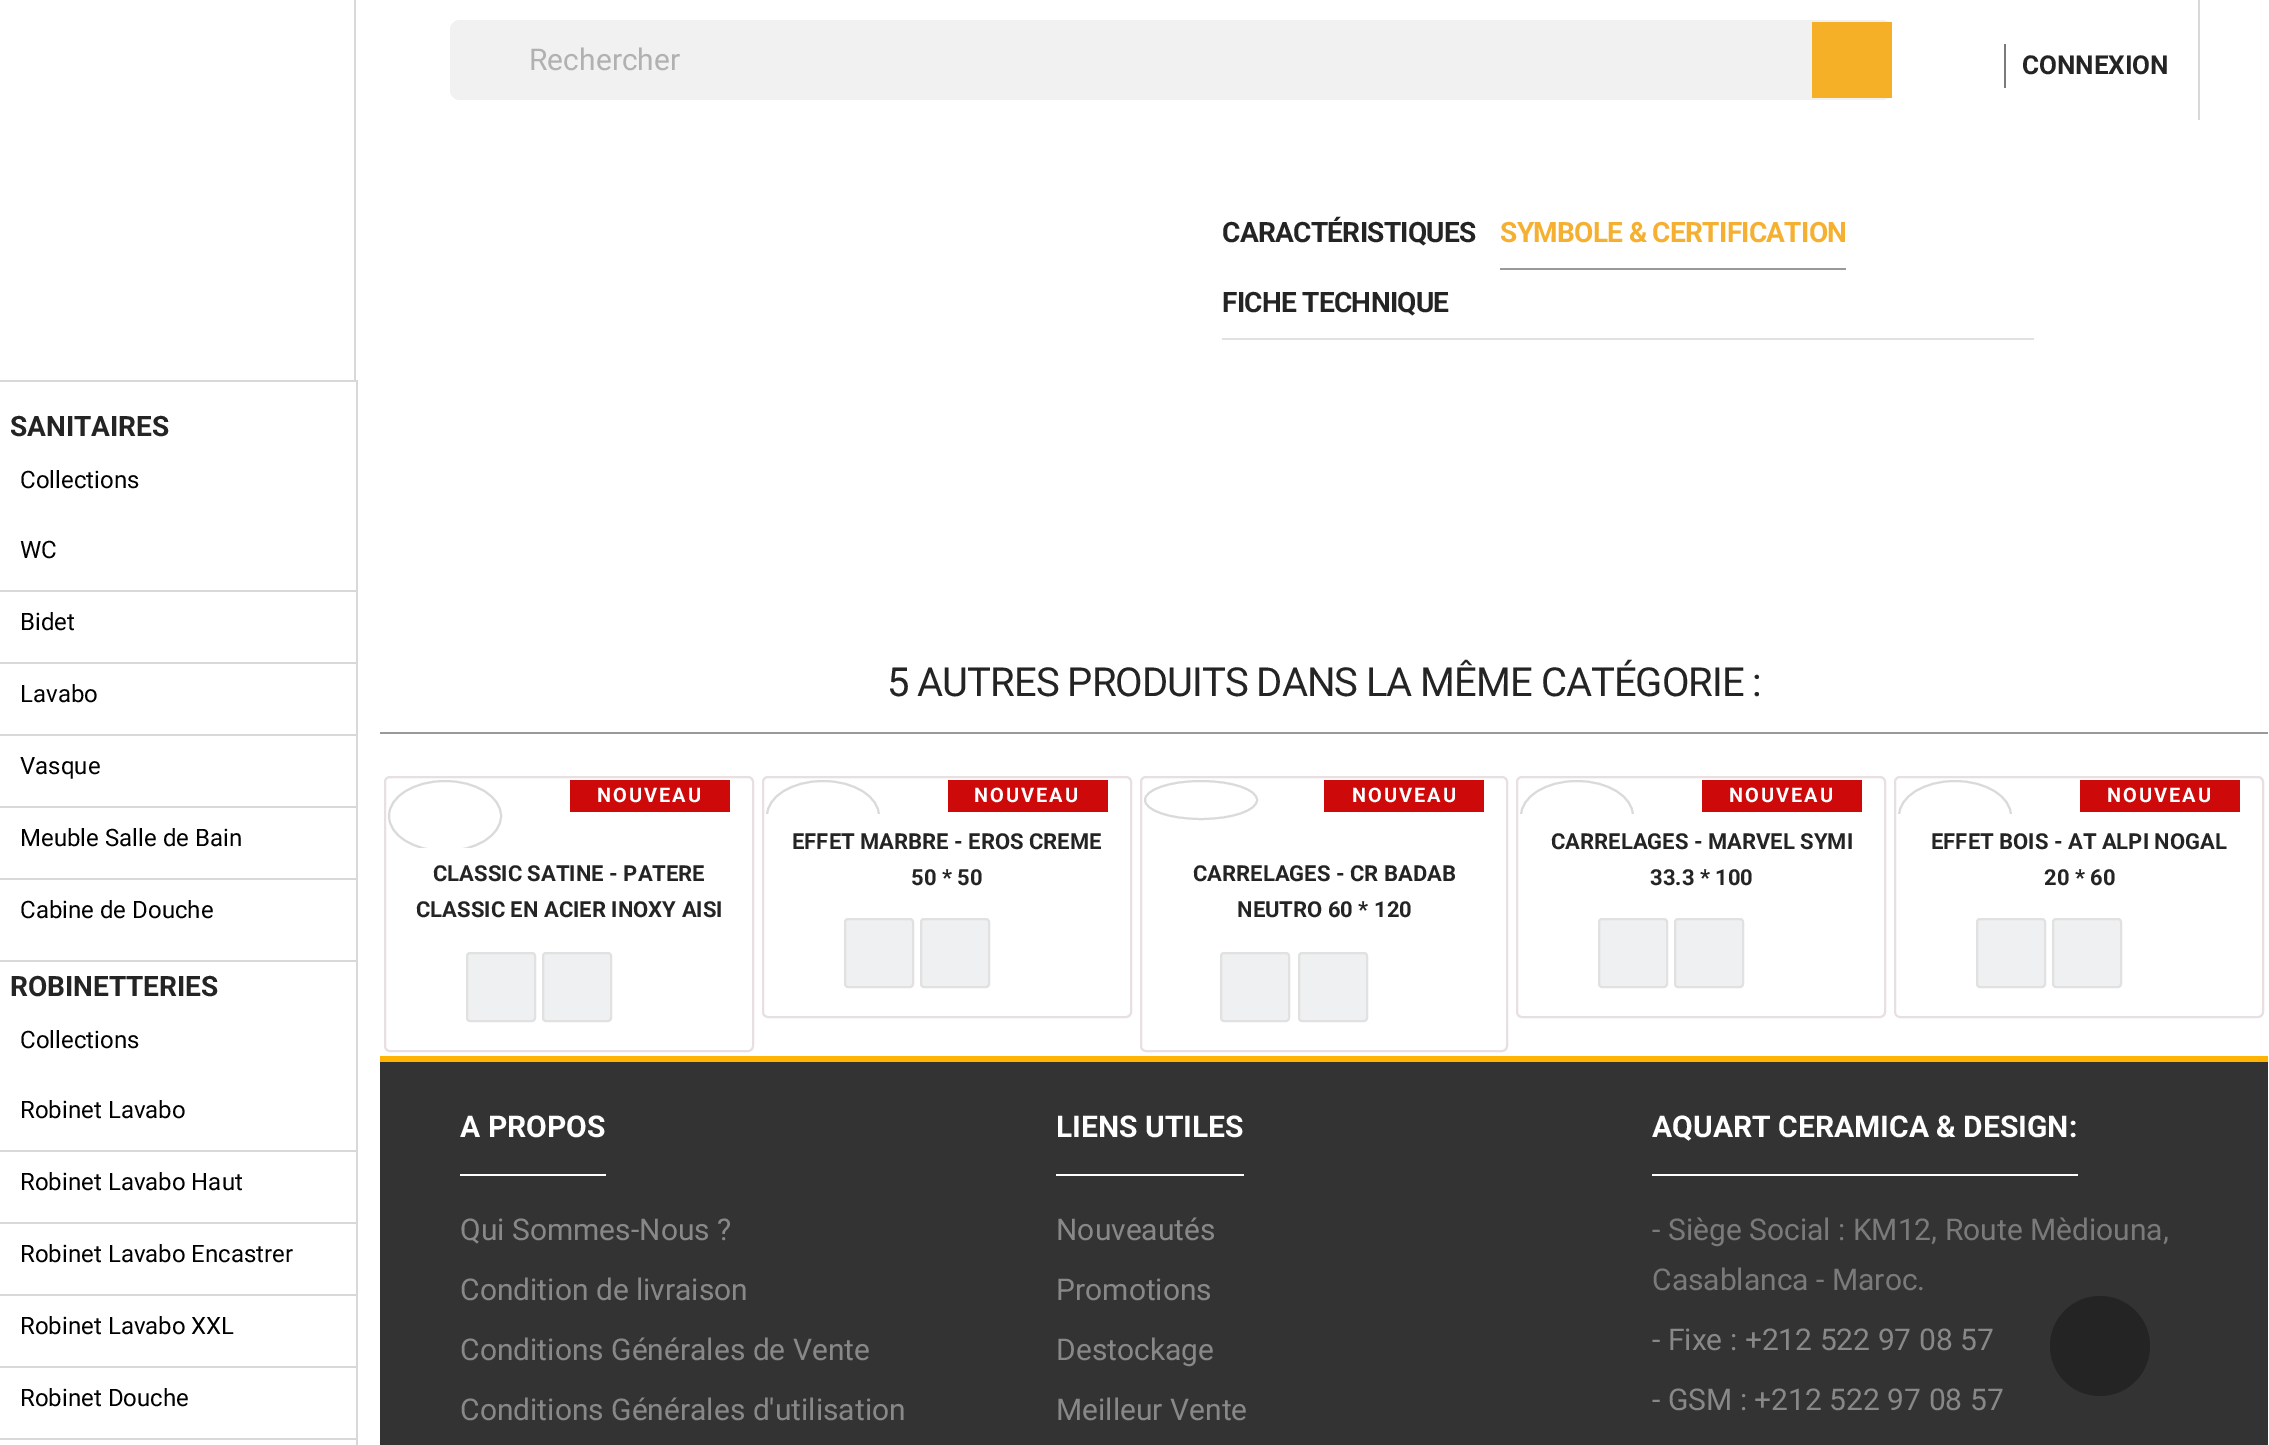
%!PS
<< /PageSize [2269 1445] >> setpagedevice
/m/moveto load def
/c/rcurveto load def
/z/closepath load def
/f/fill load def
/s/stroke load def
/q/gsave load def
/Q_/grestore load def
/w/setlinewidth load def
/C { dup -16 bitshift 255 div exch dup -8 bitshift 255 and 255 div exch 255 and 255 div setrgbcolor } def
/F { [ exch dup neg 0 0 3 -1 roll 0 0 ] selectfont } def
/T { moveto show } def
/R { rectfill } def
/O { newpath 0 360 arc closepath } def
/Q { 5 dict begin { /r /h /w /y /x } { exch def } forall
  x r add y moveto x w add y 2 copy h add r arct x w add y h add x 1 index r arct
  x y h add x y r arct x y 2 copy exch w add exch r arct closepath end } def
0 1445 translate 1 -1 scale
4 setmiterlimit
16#FFFFFF C
0 0 2269 1445 R
16#D8D8D8 C
354 0 2 380 R
16#F1F1F1 C
450 20 1442 80 10 Q f
/Roboto-Regular 30 F
16#B1B1B1 C
(Rechercher) 529 70 T
16#F5B027 C
1812 22 80 76 R
16#D8D8D8 C
2198 0 2 120 R
16#7A7A7A C
2004 44 2 44 R
/Roboto-Bold 26 F
16#242424 C
(CONNEXION) 2022 74 T
16#D8D8D8 C
0 380 358 2 R
356 380 2 1065 R
0 960 356 2 R
/Roboto-Bold 28 F
16#242424 C
(SANITAIRES) 10 436 T
/Roboto-Regular 24 F
16#000000 C
(Collections) 20 488 T
16#D8D8D8 C
0 590 356 2 R
16#000000 C
(WC) 20 558 T
16#D8D8D8 C
0 662 356 2 R
16#000000 C
(Bidet) 20 630 T
16#D8D8D8 C
0 734 356 2 R
16#000000 C
(Lavabo) 20 702 T
16#D8D8D8 C
0 806 356 2 R
16#000000 C
(Vasque) 20 774 T
16#D8D8D8 C
0 878 356 2 R
16#000000 C
(Meuble Salle de Bain) 20 846 T
(Cabine de Douche) 20 918 T
/Roboto-Bold 28 F
16#242424 C
(ROBINETTERIES) 10 996 T
/Roboto-Regular 24 F
16#000000 C
(Collections) 20 1048 T
16#D8D8D8 C
0 1150 356 2 R
16#000000 C
(Robinet Lavabo) 20 1118 T
16#D8D8D8 C
0 1222 356 2 R
16#000000 C
(Robinet Lavabo Haut) 20 1190 T
16#D8D8D8 C
0 1294 356 2 R
16#000000 C
(Robinet Lavabo Encastrer) 20 1262 T
16#D8D8D8 C
0 1366 356 2 R
16#000000 C
(Robinet Lavabo XXL) 20 1334 T
16#D8D8D8 C
0 1438 356 2 R
16#000000 C
(Robinet Douche) 20 1406 T
16#E1E1E1 C
1222 338 812 2 R
/Roboto-Bold 28 F
16#242424 C
1222 242 m -.7 0 (CARACTÉRISTIQUES) ashow
16#F5B032 C
1500 242 m -.7 0 (SYMBOLE & CERTIFICATION) ashow
16#999999 C
1500 268 346 2 R
16#242424 C
1222 312 m -.7 0 (FICHE TECHNIQUE) ashow
/Roboto-Regular 40 F
887 696 m -1 0 (5 AUTRES PRODUITS DANS LA MÊME CATÉGORIE :) ashow
16#999999 C
380 732 1888 2 R
16#E8E0E0 C
2 w
385 777 368 274 5 Q s
q
388 780 362 68 rectclip
16#DADADA C
445 781 m 31 0 56 15.5 56 35 c 0 19.5 -25 35 -56 35 c -31 0 -56 -15.5 -56 -35 c 0 -19.5 25 -35 56 -35 c z s
Q_
16#CD090A C
570 780 160 32 R
/Roboto-Bold 20 F
16#FFFFFF C
597 802 m 2 0 (NOUVEAU) ashow
/Roboto-Bold 22 F
16#242424 C
(CLASSIC SATINE - PATERE) 433 881 T
(CLASSIC EN ACIER INOXY AISI) 416 917 T
16#EEF0F1 C
467 953 68 68 3 Q q f Q_
16#E1E1E1 C
s
16#EEF0F1 C
543 953 68 68 3 Q q f Q_
16#E1E1E1 C
s
16#E8E0E0 C
763 777 368 240 5 Q s
q
766 780 362 34 rectclip
16#DADADA C
823 781 m 31 0 56 15.5 56 35 c 0 19.5 -25 35 -56 35 c -31 0 -56 -15.5 -56 -35 c 0 -19.5 25 -35 56 -35 c z s
Q_
16#CD090A C
948 780 160 32 R
/Roboto-Bold 20 F
16#FFFFFF C
974 802 m 2 0 (NOUVEAU) ashow
/Roboto-Bold 22 F
16#242424 C
(EFFET MARBRE - EROS CREME) 792 849 T
(50 * 50) 911 885 T
16#EEF0F1 C
845 919 68 68 3 Q q f Q_
16#E1E1E1 C
s
16#EEF0F1 C
921 919 68 68 3 Q q f Q_
16#E1E1E1 C
s
16#E8E0E0 C
1141 777 366 274 5 Q s
16#DADADA C
1201 781 m 31 0 56 8.5 56 19 c 0 10.5 -25 19 -56 19 c -31 0 -56 -8.5 -56 -19 c 0 -10.5 25 -19 56 -19 c z s
16#CD090A C
1324 780 160 32 R
/Roboto-Bold 20 F
16#FFFFFF C
1352 802 m 2 0 (NOUVEAU) ashow
/Roboto-Bold 22 F
16#242424 C
(CARRELAGES - CR BADAB) 1193 881 T
(NEUTRO 60 * 120) 1237 917 T
16#EEF0F1 C
1221 953 68 68 3 Q q f Q_
16#E1E1E1 C
s
16#EEF0F1 C
1299 953 68 68 3 Q q f Q_
16#E1E1E1 C
s
16#E8E0E0 C
1517 777 368 240 5 Q s
q
1520 780 362 34 rectclip
16#DADADA C
1577 781 m 31 0 56 15.5 56 35 c 0 19.5 -25 35 -56 35 c -31 0 -56 -15.5 -56 -35 c 0 -19.5 25 -35 56 -35 c z s
Q_
16#CD090A C
1702 780 160 32 R
/Roboto-Bold 20 F
16#FFFFFF C
1729 802 m 2 0 (NOUVEAU) ashow
/Roboto-Bold 22 F
16#242424 C
(CARRELAGES - MARVEL SYMI) 1551 849 T
(33.3 * 100) 1650 885 T
16#EEF0F1 C
1599 919 68 68 3 Q q f Q_
16#E1E1E1 C
s
16#EEF0F1 C
1675 919 68 68 3 Q q f Q_
16#E1E1E1 C
s
16#E8E0E0 C
1895 777 368 240 5 Q s
q
1898 780 362 34 rectclip
16#DADADA C
1955 781 m 31 0 56 15.5 56 35 c 0 19.5 -25 35 -56 35 c -31 0 -56 -15.5 -56 -35 c 0 -19.5 25 -35 56 -35 c z s
Q_
16#CD090A C
2080 780 160 32 R
/Roboto-Bold 20 F
16#FFFFFF C
2107 802 m 2 0 (NOUVEAU) ashow
/Roboto-Bold 22 F
16#242424 C
(EFFET BOIS - AT ALPI NOGAL) 1931 849 T
(20 * 60) 2044 885 T
16#EEF0F1 C
1977 919 68 68 3 Q q f Q_
16#E1E1E1 C
s
16#EEF0F1 C
2053 919 68 68 3 Q q f Q_
16#E1E1E1 C
s
16#FFB403 C
380 1056 1888 6 R
16#333333 C
380 1062 1888 383 R
16#FFFFFF C
460 1174 146 2 R
/Roboto-Bold 30 F
(A PROPOS) 460 1137 T
/Roboto-Regular 30 F
16#888888 C
(Qui Sommes-Nous ?) 460 1240 T
(Condition de livraison) 460 1300 T
(Conditions Générales de Vente) 460 1360 T
(Conditions Générales d'utilisation) 460 1420 T
16#FFFFFF C
1056 1174 188 2 R
/Roboto-Bold 30 F
(LIENS UTILES) 1056 1137 T
/Roboto-Regular 30 F
16#888888 C
(Nouveautés) 1056 1240 T
(Promotions) 1056 1300 T
(Destockage) 1056 1360 T
(Meilleur Vente) 1056 1420 T
16#FFFFFF C
1652 1174 426 2 R
/Roboto-Bold 30 F
(AQUART CERAMICA & DESIGN:) 1652 1137 T
/Roboto-Regular 30 F
16#7A7A7A C
(- Siège Social : KM12, Route Mèdiouna,) 1652 1240 T
(Casablanca - Maroc.) 1652 1290 T
16#888888 C
(- Fixe : +212 522 97 08 57) 1652 1350 T
(- GSM : +212 522 97 08 57) 1652 1410 T
16#242424 C
2100 1346 50 O f
showpage
